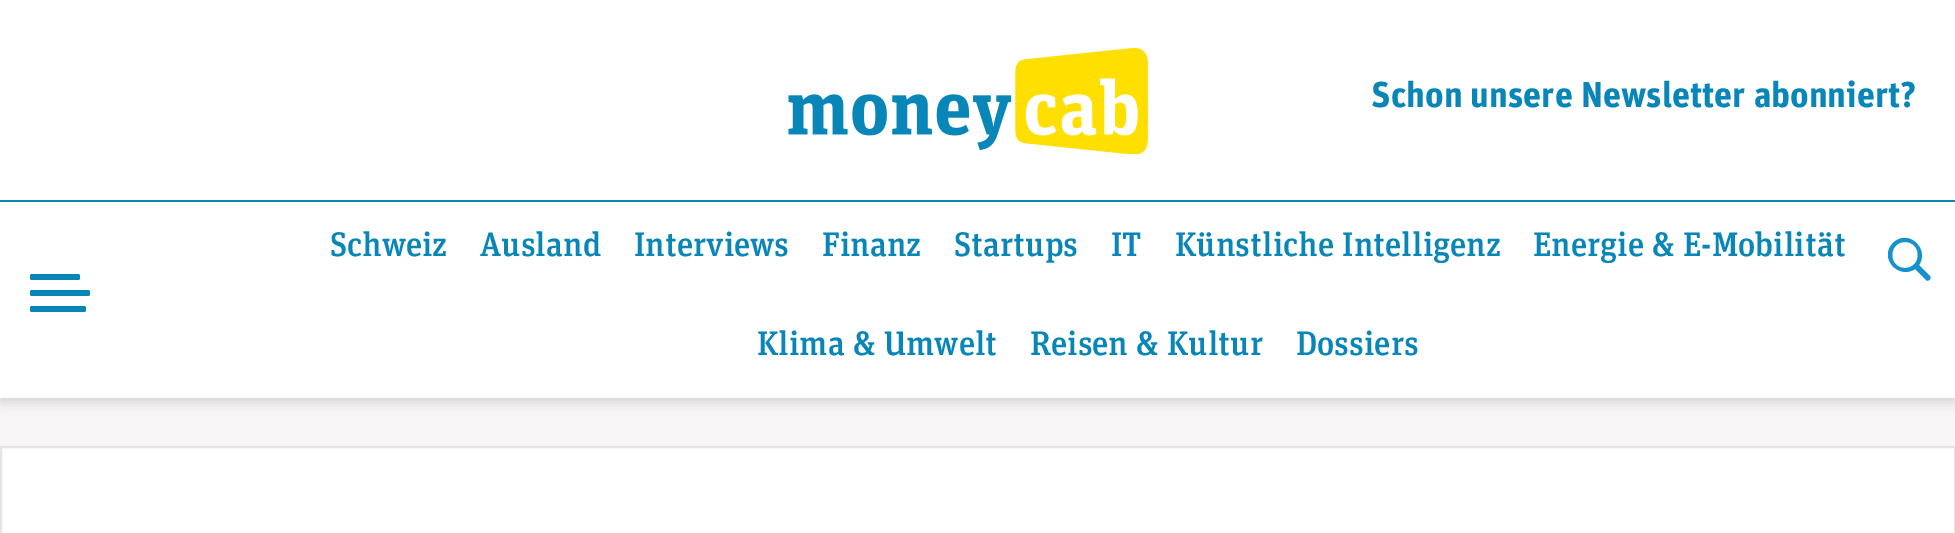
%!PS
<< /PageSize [1955 533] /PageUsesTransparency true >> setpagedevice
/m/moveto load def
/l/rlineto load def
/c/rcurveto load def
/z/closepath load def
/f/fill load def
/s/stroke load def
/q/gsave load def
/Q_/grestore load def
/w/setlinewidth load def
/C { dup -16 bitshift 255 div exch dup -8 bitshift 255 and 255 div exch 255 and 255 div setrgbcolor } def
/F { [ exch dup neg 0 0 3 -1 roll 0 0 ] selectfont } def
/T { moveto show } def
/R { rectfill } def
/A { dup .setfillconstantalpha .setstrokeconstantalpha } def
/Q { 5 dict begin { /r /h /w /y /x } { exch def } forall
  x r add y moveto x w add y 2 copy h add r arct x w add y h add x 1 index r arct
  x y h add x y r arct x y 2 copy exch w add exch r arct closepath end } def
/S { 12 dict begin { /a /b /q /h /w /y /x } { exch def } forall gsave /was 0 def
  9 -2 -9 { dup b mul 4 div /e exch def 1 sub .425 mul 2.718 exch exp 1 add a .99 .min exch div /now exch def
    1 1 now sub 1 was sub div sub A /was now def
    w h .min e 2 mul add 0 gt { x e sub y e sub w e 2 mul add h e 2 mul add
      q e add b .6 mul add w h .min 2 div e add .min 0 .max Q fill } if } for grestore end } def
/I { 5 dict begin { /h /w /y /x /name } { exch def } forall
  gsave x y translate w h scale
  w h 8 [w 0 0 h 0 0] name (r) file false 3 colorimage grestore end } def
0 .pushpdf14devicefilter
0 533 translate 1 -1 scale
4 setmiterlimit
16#F9F6F7 C
0 0 1955 533 R
16#000000 C
0 4 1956 398 0 6 .15 S
16#FFFFFF C
0 0 1955 398 R
16#0986B8 C
0 200 1955 2 R
(1.rgb) 788 48 360 106 I
/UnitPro-Bold 36 F
(Schon unsere Newsletter abonniert?) 1371 107 T
/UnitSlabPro-Medium 34 F
(Schweiz) 330 256 T
(Ausland) 480 256 T
(Interviews) 634 256 T
(Finanz) 822 256 T
(Startups) 954 256 T
(IT) 1111 256 T
(Künstliche Intelligenz) 1175 256 T
(Energie & E-Mobilität) 1533 256 T
(Klima & Umwelt) 757 355 T
(Reisen & Kultur) 1030 355 T
(Dossiers) 1296 355 T
q
1888 238 44 44 rectclip
16#1392CD C
1915 269 m -16 11 -37 -11 -22 -26 c 15 -15 37 6 26 22 c 11 11 l 2 3 -2 6 -4 4 c z 1905 268 m 17 0 17 -26 0 -26 c -17 0 -17 26 0 26 c z f
Q_
30 290 60 6 2 Q f
30 274 50 6 2 Q f
30 306 56 6 2 Q f
16#FFFFFF C
1 447 m 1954 0 l 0 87 l -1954 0 l z q f Q_
16#E4E4E4 C
2 w
s
.poppdf14devicefilter showpage
